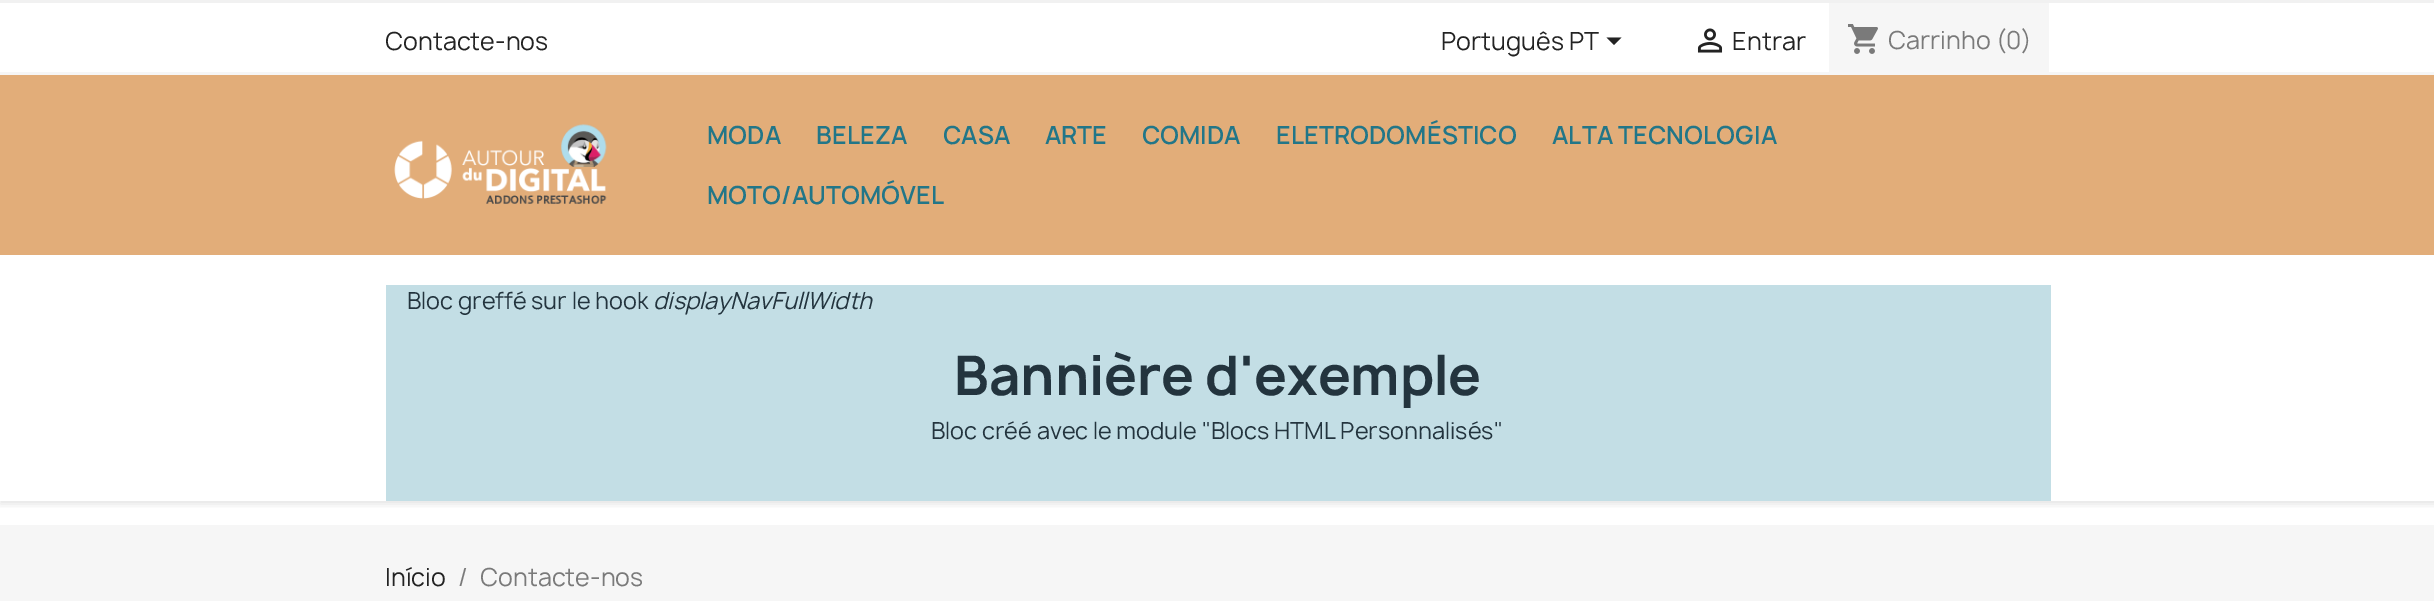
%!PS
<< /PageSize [2434 601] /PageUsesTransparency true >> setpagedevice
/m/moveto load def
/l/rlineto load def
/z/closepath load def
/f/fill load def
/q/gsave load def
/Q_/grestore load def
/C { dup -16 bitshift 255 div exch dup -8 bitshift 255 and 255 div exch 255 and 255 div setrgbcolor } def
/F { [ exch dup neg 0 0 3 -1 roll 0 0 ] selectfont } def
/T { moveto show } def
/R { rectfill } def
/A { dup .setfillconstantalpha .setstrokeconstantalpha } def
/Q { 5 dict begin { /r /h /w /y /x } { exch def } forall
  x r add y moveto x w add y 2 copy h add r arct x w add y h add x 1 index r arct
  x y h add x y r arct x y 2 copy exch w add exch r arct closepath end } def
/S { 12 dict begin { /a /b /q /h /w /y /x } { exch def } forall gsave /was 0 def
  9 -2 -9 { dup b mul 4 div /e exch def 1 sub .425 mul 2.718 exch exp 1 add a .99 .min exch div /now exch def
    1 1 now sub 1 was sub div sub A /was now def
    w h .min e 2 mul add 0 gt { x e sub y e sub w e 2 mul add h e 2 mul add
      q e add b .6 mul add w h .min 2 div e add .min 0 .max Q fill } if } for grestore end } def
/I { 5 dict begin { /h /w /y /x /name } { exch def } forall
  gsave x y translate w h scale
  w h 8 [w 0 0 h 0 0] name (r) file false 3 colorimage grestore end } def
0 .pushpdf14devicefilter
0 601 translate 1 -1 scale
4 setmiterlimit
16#FFFFFF C
0 0 2434 601 R
q
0 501 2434 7 rectclip
16#000000 C
0 3 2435 501 0 4 .11 S
Q_
16#F1F1F1 C
0 0 2434 3 R
16#F6F6F6 C
0 72 2434 3 R
/Manrope-Regular 24 F
16#232323 C
(Contacte-nos) 385 50 T
(Português PT) 1441 50 T
1606.5 37.5 m 15 0 l -7.5 7.5 l z f
(1.rgb) 1697 28 26 25 I
(Entrar) 1732 50 T
16#F6F6F6 C
1829 3 220 69 R
(2.rgb) 1848 24 30 30 I
16#7A7A7A C
(Carrinho \(0\)) 1888 49 T
16#E2AD79 C
0 75 2434 180 R
(3.rgb) 394 124 213 80 I
/Manrope-SemiBold 24 F
16#227688 C
(MODA) 707 144 T
(BELEZA) 816 144 T
(CASA) 943 144 T
(ARTE) 1045 144 T
(COMIDA) 1142 144 T
(ELETRODOMÉSTICO) 1276 144 T
(ALTA TECNOLOGIA) 1552 144 T
(MOTO/AUTOMÓVEL) 707 204 T
16#C3DEE5 C
386 285 1665 216 R
/Manrope-Regular 22.5 F
16#23343E C
(Bloc greffé sur le hook) 407 309 T
/Manrope-Italic 22.5 F
(displayNavFullWidth) 653 309 T
/Manrope-Bold 52.5 F
(Bannière d'exemple) 954 395 T
/Manrope-Regular 22.5 F
(Bloc créé avec le module "Blocs HTML Personnalisés") 931 439 T
16#F6F6F6 C
0 525 2434 76 R
/Manrope-Regular 24 F
16#232323 C
(Início) 385 586 T
16#7A7A7A C
(/) 458 586 T
(Contacte-nos) 480 586 T
.poppdf14devicefilter showpage
